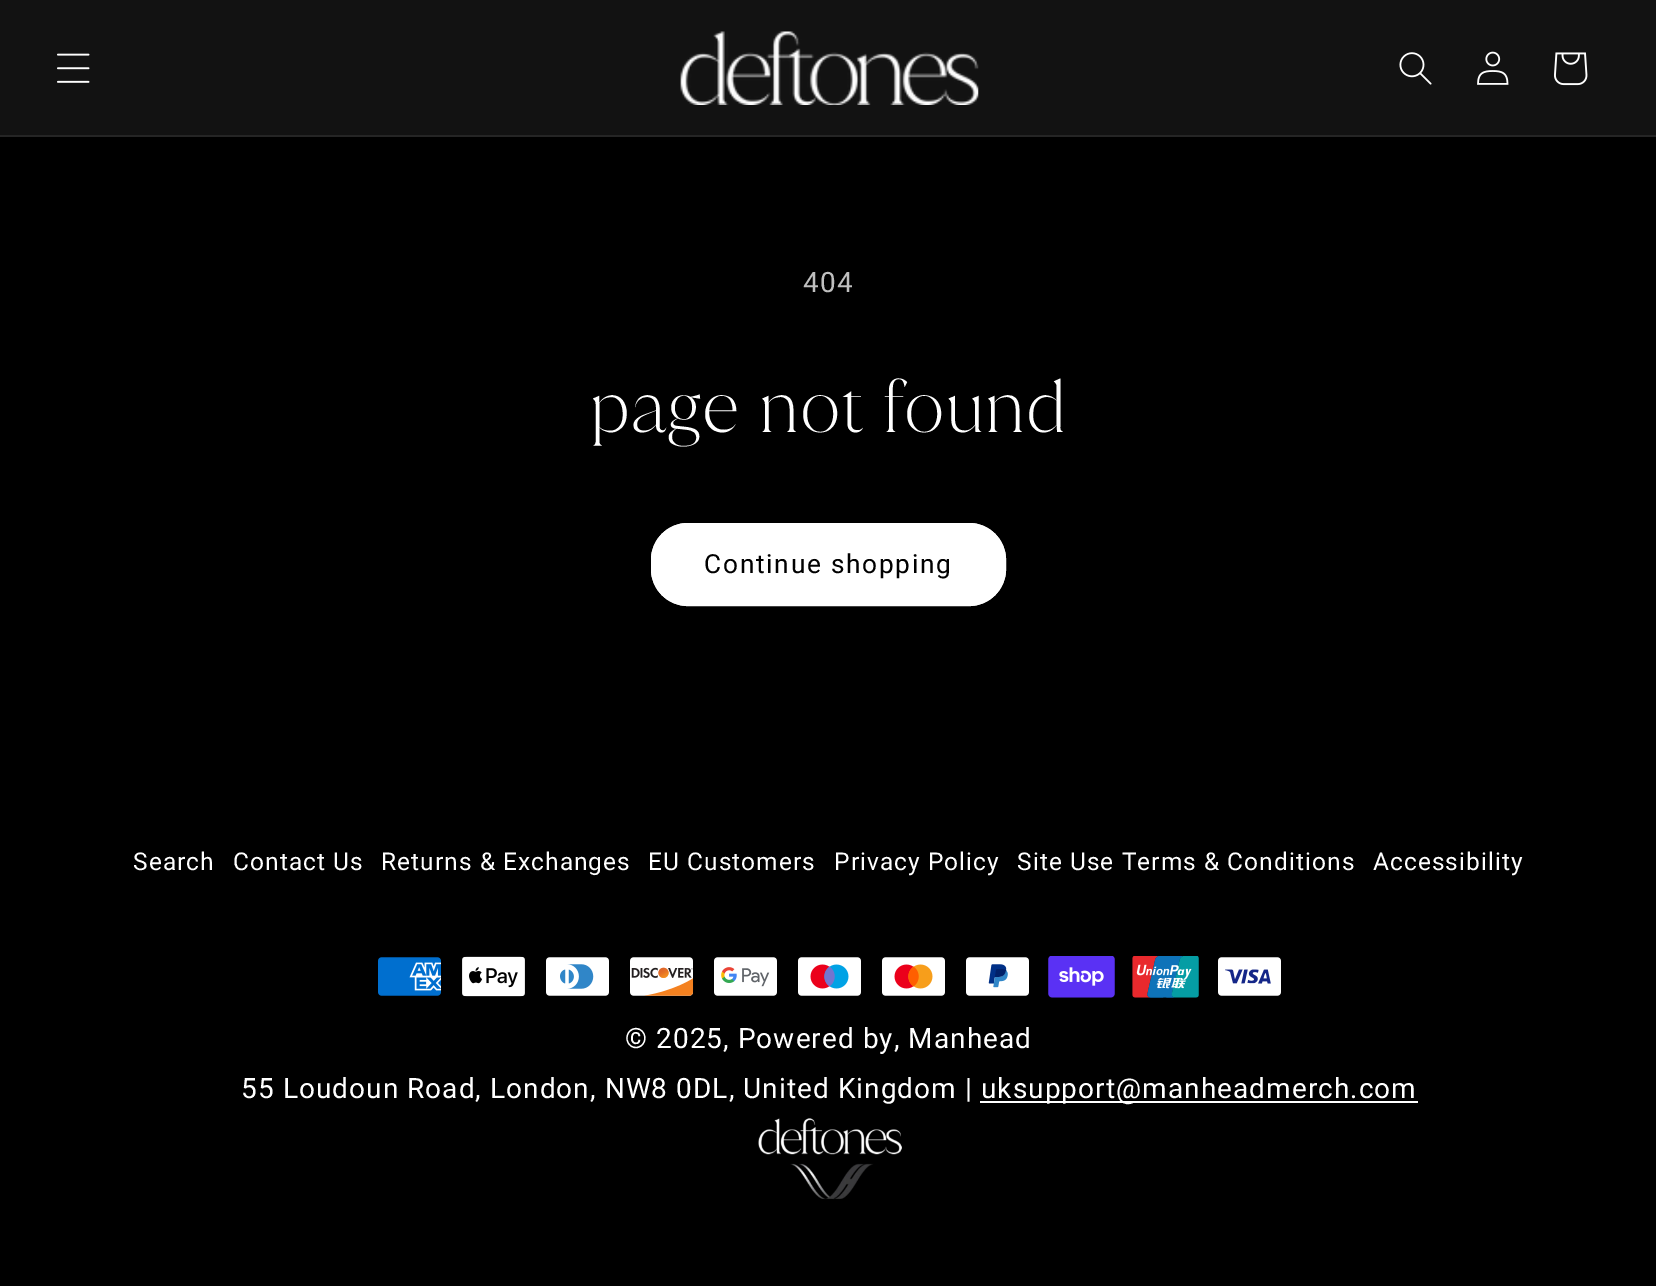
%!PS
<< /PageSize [1656 1286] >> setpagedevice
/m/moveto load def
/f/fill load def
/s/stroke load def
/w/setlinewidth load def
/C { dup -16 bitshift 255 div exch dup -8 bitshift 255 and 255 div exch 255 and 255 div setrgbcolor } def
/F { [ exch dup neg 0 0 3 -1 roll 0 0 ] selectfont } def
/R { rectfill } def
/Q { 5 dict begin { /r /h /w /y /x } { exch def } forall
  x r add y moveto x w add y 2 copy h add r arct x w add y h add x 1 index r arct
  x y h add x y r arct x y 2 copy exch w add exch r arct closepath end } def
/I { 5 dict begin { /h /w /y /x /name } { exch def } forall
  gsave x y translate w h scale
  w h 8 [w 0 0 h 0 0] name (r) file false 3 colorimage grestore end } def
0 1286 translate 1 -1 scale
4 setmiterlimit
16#000000 C
0 0 1656 1286 R
16#121212 C
0 0 1656 135 R
16#252525 C
0 135 1656 2 R
(1.rgb) 57 53 33 30 I
(2.rgb) 680 31 299 74 I
(3.rgb) 1399 52 33 33 I
(4.rgb) 1477 51 32 34 I
(5.rgb) 1554 52 34 34 I
/Roboto-Regular 28 F
16#BFBFBF C
803 292 m 1.05 0 (404) ashow
/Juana-ExtraLight 70 F
16#FFFFFF C
590 432 m 1.05 0 (page not found) ashow
651 523 355 83 37 Q f
2 w
652 524 353 81 36 Q s
/Roboto-Regular 26.25 F
16#000000 C
704 573 m 1.75 0 (Continue shopping) ashow
/Roboto-Regular 24.5 F
16#FFFFFF C
133 870 m 1.05 0 (Search) ashow
233 870 m 1.05 0 (Contact Us) ashow
381 870 m 1.05 0 (Returns & Exchanges) ashow
648 870 m 1.05 0 (EU Customers) ashow
834 870 m 1.05 0 (Privacy Policy) ashow
1017 870 m 1.05 0 (Site Use Terms & Conditions) ashow
1373 870 m 1.05 0 (Accessibility) ashow
(6.rgb) 378 957 63 39 I
(7.rgb) 462 956 63 41 I
(8.rgb) 546 957 63 39 I
(9.rgb) 630 957 64 39 I
(10.rgb) 714 957 63 39 I
(11.rgb) 798 957 63 39 I
(12.rgb) 882 957 63 39 I
(13.rgb) 966 957 63 39 I
(14.rgb) 1048 956 67 42 I
(15.rgb) 1132 956 67 42 I
(16.rgb) 1218 957 63 39 I
/Roboto-Regular 28 F
625 1048 m 1.05 0 (© 2025, Powered by, Manhead) ashow
241 1098 m 1.05 0 (55 Loudoun Road, London, NW8 0DL, United Kingdom |) ashow
980 1101 438 2 R
981 1098 m 1.05 0 (uksupport@manheadmerch.com) ashow
(17.rgb) 758 1118 144 82 I
showpage
